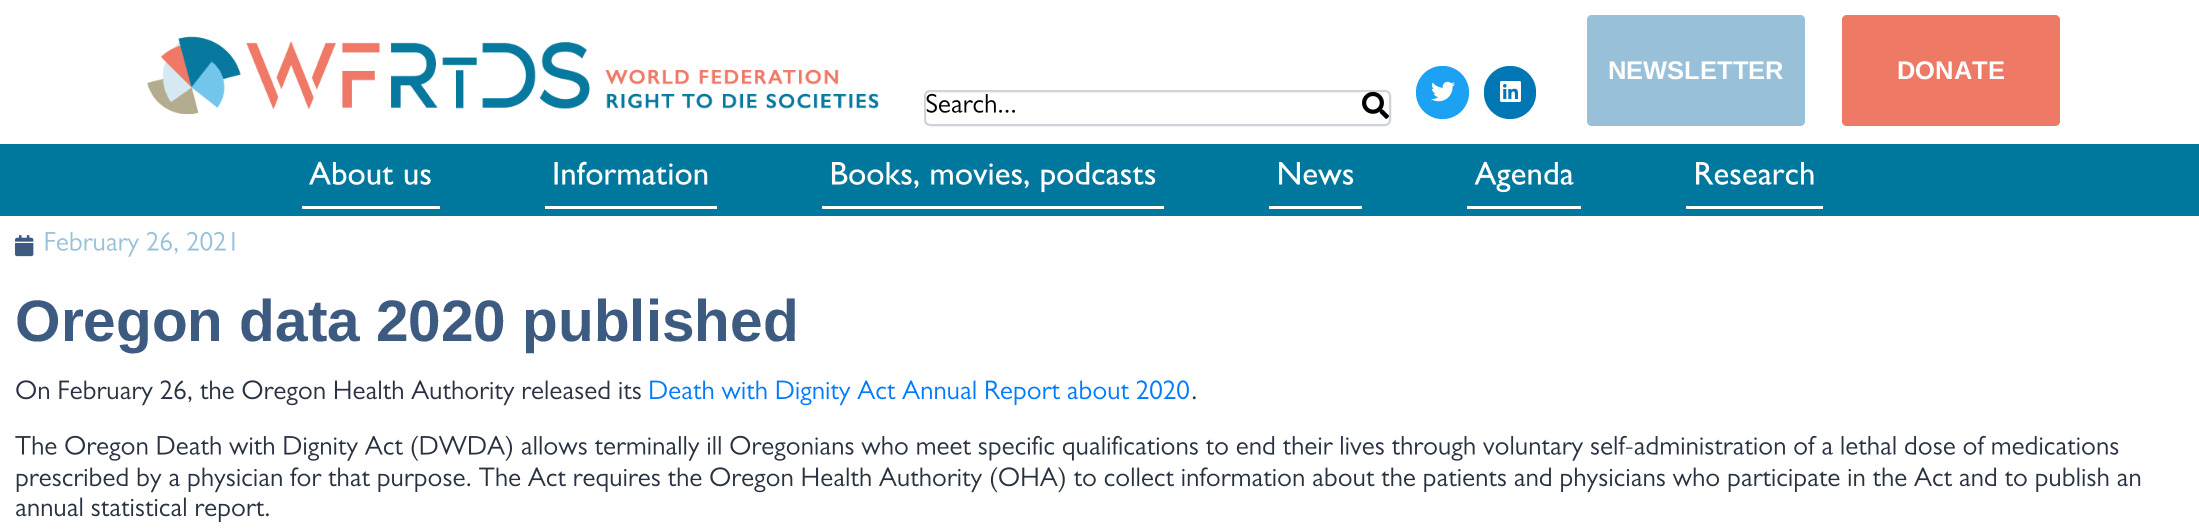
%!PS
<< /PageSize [2199 529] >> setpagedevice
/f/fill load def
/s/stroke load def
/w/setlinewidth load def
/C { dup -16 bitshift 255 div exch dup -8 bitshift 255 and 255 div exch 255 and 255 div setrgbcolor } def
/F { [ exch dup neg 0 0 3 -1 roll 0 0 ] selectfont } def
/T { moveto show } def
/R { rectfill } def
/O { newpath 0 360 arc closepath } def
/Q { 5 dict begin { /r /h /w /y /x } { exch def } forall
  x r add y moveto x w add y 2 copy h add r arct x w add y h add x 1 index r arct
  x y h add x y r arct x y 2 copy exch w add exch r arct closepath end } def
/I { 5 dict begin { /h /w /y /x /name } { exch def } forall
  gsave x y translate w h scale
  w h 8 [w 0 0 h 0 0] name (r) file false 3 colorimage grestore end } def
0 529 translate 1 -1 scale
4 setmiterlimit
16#FFFFFF C
0 0 2199 529 R
(1.rgb) 147 36 732 78 I
16#CED4DA C
2 w
925 91 465 34 5 Q s
(2.rgb) 926 93 89 20 I
(3.rgb) 1362 91 27 28 I
16#1DA1F2 C
1442.5 92.5 26.5 O f
(4.rgb) 1431 81 24 21 I
16#0077B5 C
1484 66 52 53 26 Q f
(5.rgb) 1500 81 21 21 I
16#98C1D9 C
1587 15 218 111 5 Q f
/LiberationSans-Bold 25.5 F
16#FFFFFF C
(NEWSLETTER) 1608 79 T
16#EE7A66 C
1842 15 218 111 5 Q f
16#FFFFFF C
(DONATE) 1897 79 T
16#00789D C
0 144 2199 72 R
16#FFFFFF C
302 206 138 3 R
(6.rgb) 309 161 122 24 I
545 206 172 3 R
(7.rgb) 554 161 154 24 I
822 206 342 3 R
(8.rgb) 831 162 325 31 I
1269 206 93 3 R
(9.rgb) 1279 162 75 23 I
1467 206 114 3 R
(10.rgb) 1474 161 100 32 I
1686 206 137 3 R
(11.rgb) 1696 162 118 23 I
(12.rgb) 15 235 19 22 I
(13.rgb) 45 231 190 26 I
/LiberationSans-Bold 58.5 F
16#3D5A80 C
(Oregon data 2020 published) 15 341 T
(14.rgb) 16 380 625 26 I
(15.rgb) 650 380 539 26 I
(16.rgb) 1192 396 4 4 I
(17.rgb) 15 435 2104 26 I
(18.rgb) 16 467 2125 26 I
(19.rgb) 16 497 253 25 I
showpage
